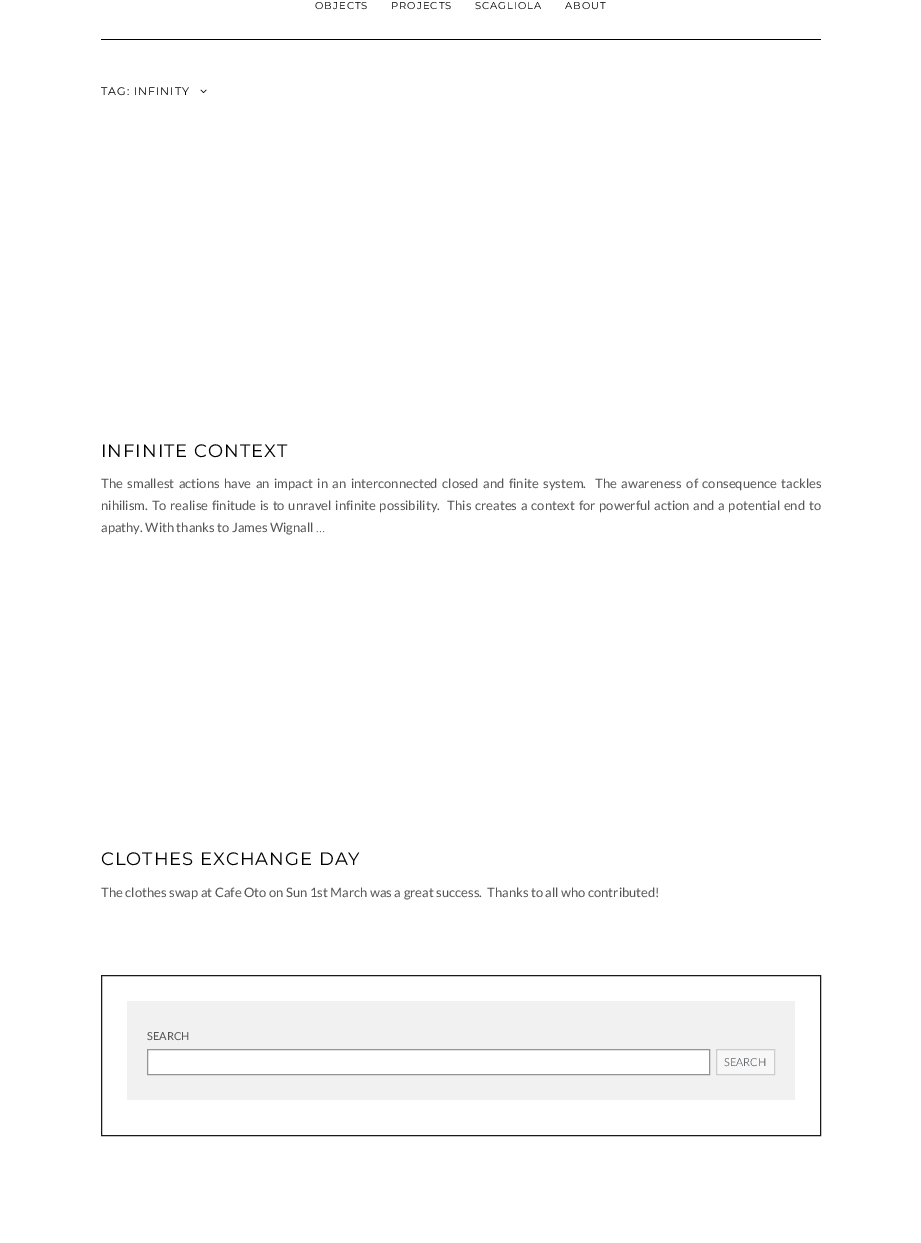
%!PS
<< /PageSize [921 1243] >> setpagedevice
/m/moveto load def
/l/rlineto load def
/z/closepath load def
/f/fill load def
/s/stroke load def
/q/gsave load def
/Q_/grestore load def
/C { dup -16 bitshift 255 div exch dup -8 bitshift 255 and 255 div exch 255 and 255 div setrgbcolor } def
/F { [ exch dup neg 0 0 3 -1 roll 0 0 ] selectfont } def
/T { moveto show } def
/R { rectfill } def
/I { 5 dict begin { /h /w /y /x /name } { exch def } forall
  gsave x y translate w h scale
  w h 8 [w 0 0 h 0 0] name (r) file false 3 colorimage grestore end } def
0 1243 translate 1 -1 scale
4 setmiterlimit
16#FFFFFF C
0 0 921 1243 R
16#000000 C
101 39 720 1 R
/Montserrat-Regular 10 F
315 9 m 1 0 (OBJECTS) ashow
391 9 m 1 0 (PROJECTS) ashow
475 9 m 1 0 (SCAGLIOLA) ashow
565 9 m 1 0 (ABOUT) ashow
/Montserrat-Regular 11 F
101 95 m 1 0 (TAG: INFINITY) ashow
(1.rgb) 200 89 7 5 I
/Montserrat-Regular 18 F
101 457 m 1 0 (INFINITE CONTEXT) ashow
/Lato-Regular 13 F
16#545454 C
101 488 m 2 0 32 (The smallest actions have an impact in an interconnected closed and finite system.  The awareness of consequence tackles) widthshow
101 510 m 1.25 0 32 (nihilism. To realise finitude is to unravel infinite possibility.  This creates a context for powerful action and a potential end to) widthshow
(apathy. With thanks to James Wignall) 101 532 T
/Lato-Light 13 F
(…) 316 532 T
/Montserrat-Regular 18 F
16#000000 C
101 865 m 1 0 (CLOTHES EXCHANGE DAY) ashow
/Lato-Regular 13 F
16#545454 C
(The clothes swap at Cafe Oto on Sun 1st March was a great success.  Thanks to all who contributed!) 101 897 T
16#1A1A1A C
101.5 975.5 719 160 rectstroke
16#F1F1F1 C
127 1001 668 99 R
/Lato-Regular 11 F
16#545454 C
(SEARCH) 147 1040 T
16#FFFFFF C
147.5 1049.5 m 562 0 l 0 25 l -562 0 l z q f Q_
16#949494 C
s
16#F7F7F7 C
716.5 1049.5 m 58 0 l 0 25 l -58 0 l z q f Q_
16#CCCCCC C
s
/Lato-Light 11 F
16#32373C C
(SEARCH) 724 1066 T
showpage
